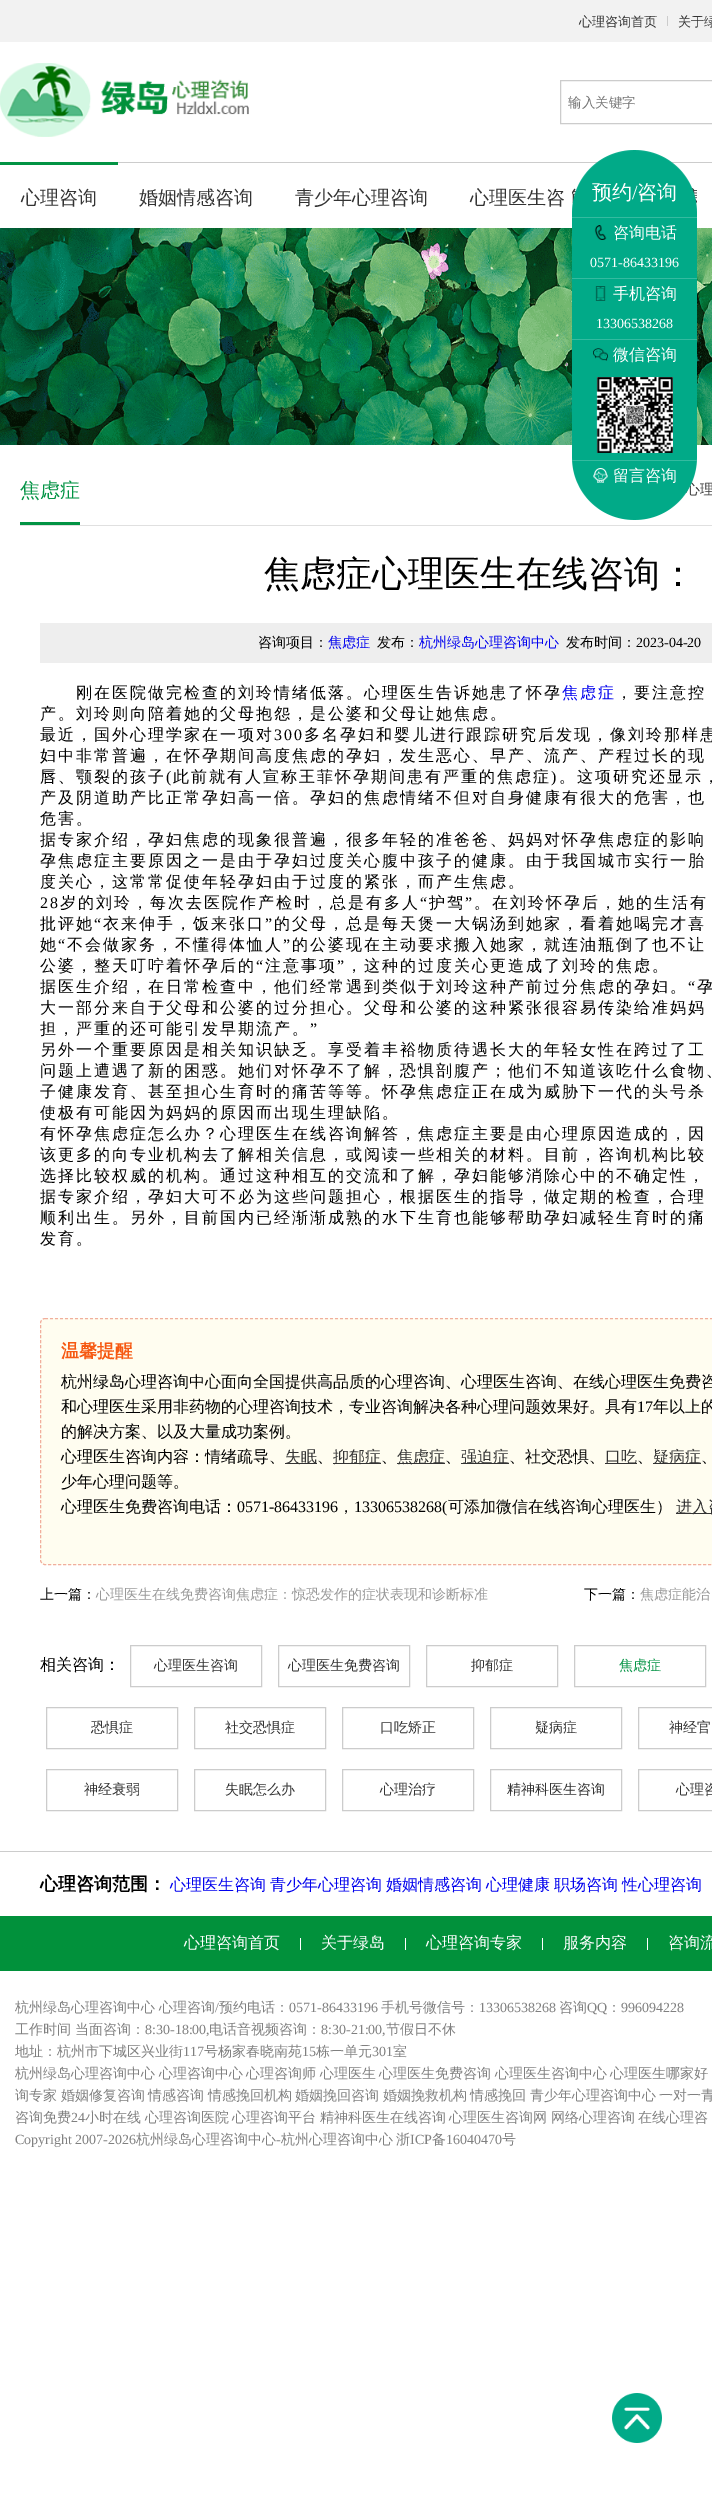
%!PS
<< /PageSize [712 2517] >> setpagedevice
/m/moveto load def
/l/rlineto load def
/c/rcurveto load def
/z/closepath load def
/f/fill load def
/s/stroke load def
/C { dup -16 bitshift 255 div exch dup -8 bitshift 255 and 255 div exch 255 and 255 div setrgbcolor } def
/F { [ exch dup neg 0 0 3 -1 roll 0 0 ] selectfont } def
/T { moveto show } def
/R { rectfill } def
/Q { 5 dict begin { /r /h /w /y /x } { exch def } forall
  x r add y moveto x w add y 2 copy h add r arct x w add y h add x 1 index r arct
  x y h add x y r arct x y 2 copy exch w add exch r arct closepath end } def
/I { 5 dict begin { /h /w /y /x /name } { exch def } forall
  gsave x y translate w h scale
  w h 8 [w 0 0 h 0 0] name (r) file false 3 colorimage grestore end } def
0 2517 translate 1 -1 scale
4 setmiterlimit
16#FFFFFF C
0 0 712 2517 R
16#F2F2F2 C
0 0 712 42 R
16#CCCCCC C
667 16 1 10 R
/WenQuanYiZenHei-Medium 13 F
16#333333 C
(心理咨询首页) 579 26 T
(关于绿) 678 26 T
16#CCCCCC C
118 162 594 1 R
(1.rgb) 0 63 249 74 I
560.5 80.5 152 43 rectstroke
/WenQuanYiZenHei-Medium 13.5 F
16#757575 C
(输入关键字) 568 107 T
16#029344 C
0 162 118 3 R
/WenQuanYiZenHei-Medium 19 F
16#333333 C
(心理咨询) 21 204 T
(婚姻情感咨询) 139 204 T
(青少年心理咨询) 295 204 T
(心理医生咨) 470 204 T
(8.rgb) 0 228 712 217 I
/WenQuanYiZenHei-Medium 14 F
(心理) 686 494 T
(2.rgb) 572 150 125 370 I
16#34BBA0 C
572 217 125 1 R
/WenQuanYiZenHei-Medium 20 F
16#FFFFFF C
(预约) 592 199 T
/LiberationSerif-Regular 20 F
(/) 632 199 T
/WenQuanYiZenHei-Medium 20 F
(咨询) 637 199 T
16#34BBA0 C
572 278 125 1 R
(3.rgb) 594 225 13 15 I
/WenQuanYiZenHei-Medium 16 F
16#FFFFFF C
(咨询电话) 613 238 T
/LiberationSerif-Regular 14 F
(0571-86433196) 590 267 T
16#34BBA0 C
572 339 125 1 R
(4.rgb) 595 286 11 15 I
/WenQuanYiZenHei-Medium 16 F
16#FFFFFF C
(手机咨询) 613 299 T
/LiberationSerif-Regular 14 F
(13306538268) 596 328 T
16#34BBA0 C
572 460 125 1 R
(5.rgb) 593 348 15 13 I
/WenQuanYiZenHei-Medium 16 F
16#FFFFFF C
(微信咨询) 613 360 T
(6.rgb) 596 377 77 76 I
(7.rgb) 593 468 15 15 I
(留言咨询) 613 481 T
16#E0E0E0 C
20 525 692 1 R
16#029344 C
20 522 60 3 R
/WenQuanYiZenHei-Medium 20 F
(焦虑症) 20 497 T
/WenQuanYiZenHei-Medium 36 F
16#000000 C
(焦虑症心理医生在线咨询：) 264 586 T
16#EEEEEE C
40 623 672 40 R
/WenQuanYiZenHei-Medium 14 F
16#000000 C
(咨询项目：) 258 647 T
16#0000EE C
(焦虑症) 328 647 T
16#000000 C
(发布：) 377 647 T
16#0000EE C
(杭州绿岛心理咨询中心) 419 647 T
16#000000 C
(发布时间：) 566 647 T
/LiberationSerif-Regular 14 F
(2023-04-20) 636 647 T
/WenQuanYiZenHei-Medium 16 F
76 698 m 2 0 (刚在医院做完检查的刘玲情绪低落。心理医生告诉她患了怀孕) ashow
16#0000EE C
562 698 m 2 0 (焦虑症) ashow
16#000000 C
616 698 m 2 0 (，要注意控) ashow
40 719 m 2 0 (产。刘玲则向陪着她的父母抱怨，是公婆和父母让她焦虑。) ashow
40 740 m 2 0 (最近，国外心理学家在一项对) ashow
/LiberationSerif-Regular 16 F
274 740 m 2 0 (300) ashow
/WenQuanYiZenHei-Medium 16 F
304 740 m 2 0 (多名孕妇和婴儿进行跟踪研究后发现，像刘玲那样患) ashow
40 761 m 2 0 (妇中非常普遍，在怀孕期间高度焦虑的孕妇，发生恶心、早产、流产、产程过长的现) ashow
40 782 m 2 0 (唇、颚裂的孩子) ashow
/LiberationSerif-Regular 16 F
166 782 m 2 0 (\() ashow
/WenQuanYiZenHei-Medium 16 F
173 782 m 2 0 (此前就有人宣称王菲怀孕期间患有严重的焦虑症) ashow
/LiberationSerif-Regular 16 F
551 782 m 2 0 (\)) ashow
/WenQuanYiZenHei-Medium 16 F
559 782 m 2 0 (。这项研究还显示，) ashow
40 803 m 2 0 (产及阴道助产比正常孕妇高一倍。孕妇的焦虑情绪不但对自身健康有很大的危害，也) ashow
40 824 m 2 0 (危害。) ashow
40 845 m 2 0 (据专家介绍，孕妇焦虑的现象很普遍，很多年轻的准爸爸、妈妈对怀孕焦虑症的影响) ashow
40 866 m 2 0 (孕焦虑症主要原因之一是由于孕妇过度关心腹中孩子的健康。由于我国城市实行一胎) ashow
40 887 m 2 0 (度关心，这常常促使年轻孕妇由于过度的紧张，而产生焦虑。) ashow
/LiberationSerif-Regular 16 F
40 908 m 2 0 (28) ashow
/WenQuanYiZenHei-Medium 16 F
60 908 m 2 0 (岁的刘玲，每次去医院作产检时，总是有多人) ashow
/LiberationSerif-Regular 16 F
420 908 m 2 0 (“) ashow
/WenQuanYiZenHei-Medium 16 F
429 908 m 2 0 (护驾) ashow
/LiberationSerif-Regular 16 F
465 908 m 2 0 (”) ashow
/WenQuanYiZenHei-Medium 16 F
474 908 m 2 0 (。在刘玲怀孕后，她的生活有) ashow
40 929 m 2 0 (批评她) ashow
/LiberationSerif-Regular 16 F
94 929 m 2 0 (“) ashow
/WenQuanYiZenHei-Medium 16 F
103 929 m 2 0 (衣来伸手，饭来张口) ashow
/LiberationSerif-Regular 16 F
265 929 m 2 0 (”) ashow
/WenQuanYiZenHei-Medium 16 F
274 929 m 2 0 (的父母，总是每天煲一大锅汤到她家，看着她喝完才喜) ashow
40 950 m 2 0 (她) ashow
/LiberationSerif-Regular 16 F
58 950 m 2 0 (“) ashow
/WenQuanYiZenHei-Medium 16 F
67 950 m 2 0 (不会做家务，不懂得体恤人) ashow
/LiberationSerif-Regular 16 F
283 950 m 2 0 (”) ashow
/WenQuanYiZenHei-Medium 16 F
292 950 m 2 0 (的公婆现在主动要求搬入她家，就连油瓶倒了也不让) ashow
40 971 m 2 0 (公婆，整天叮咛着怀孕后的) ashow
/LiberationSerif-Regular 16 F
256 971 m 2 0 (“) ashow
/WenQuanYiZenHei-Medium 16 F
265 971 m 2 0 (注意事项) ashow
/LiberationSerif-Regular 16 F
337 971 m 2 0 (”) ashow
/WenQuanYiZenHei-Medium 16 F
346 971 m 2 0 (，这种的过度关心更造成了刘玲的焦虑。) ashow
40 992 m 2 0 (据医生介绍，在日常检查中，他们经常遇到类似于刘玲这种产前过分焦虑的孕妇。) ashow
/LiberationSerif-Regular 16 F
688 992 m 2 0 (“) ashow
/WenQuanYiZenHei-Medium 16 F
697 992 m 2 0 (孕) ashow
40 1013 m 2 0 (大一部分来自于父母和公婆的过分担心。父母和公婆的这种紧张很容易传染给准妈妈) ashow
40 1034 m 2 0 (担，严重的还可能引发早期流产。) ashow
/LiberationSerif-Regular 16 F
310 1034 m 2 0 (”) ashow
/WenQuanYiZenHei-Medium 16 F
40 1055 m 2 0 (另外一个重要原因是相关知识缺乏。享受着丰裕物质待遇长大的年轻女性在跨过了工) ashow
40 1076 m 2 0 (问题上遭遇了新的困惑。她们对怀孕不了解，恐惧剖腹产；他们不知道该吃什么食物、) ashow
40 1097 m 2 0 (子健康发育、甚至担心生育时的痛苦等等。怀孕焦虑症正在成为威胁下一代的头号杀) ashow
40 1118 m 2 0 (使极有可能因为妈妈的原因而出现生理缺陷。) ashow
40 1139 m 2 0 (有怀孕焦虑症怎么办？心理医生在线咨询解答，焦虑症主要是由心理原因造成的，因) ashow
40 1160 m 2 0 (该更多的向专业机构去了解相关信息，或阅读一些相关的材料。目前，咨询机构比较) ashow
40 1181 m 2 0 (选择比较权威的机构。通过这种相互的交流和了解，孕妇能够消除心中的不确定性，) ashow
40 1202 m 2 0 (据专家介绍，孕妇大可不必为这些问题担心，根据医生的指导，做定期的检查，合理) ashow
40 1223 m 2 0 (顺利出生。另外，目前国内已经渐渐成熟的水下生育也能够帮助孕妇减轻生育时的痛) ashow
40 1244 m 2 0 (发育。) ashow
16#FFFDF0 C
40 1318 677 247 5 Q f
16#F1AE9D C
[3 2] 0 setdash
45 1318.5 m 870 0 l 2.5 0 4.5 2 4.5 4.5 c 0 237 l 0 2.5 -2 4.5 -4.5 4.5 c -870 0 l -2.5 0 -4.5 -2 -4.5 -4.5 c 0 -237 l 0 -2.5 2 -4.5 4.5 -4.5 c z s
/WenQuanYiZenHei-Bold 18 F
16#F65912 C
(温馨提醒) 61 1357 T
/WenQuanYiZenHei-Medium 16 F
16#000000 C
(杭州绿岛心理咨询中心面向全国提供高品质的心理咨询、心理医生咨询、在线心理医生免费咨) 61 1387 T
(和心理医生采用非药物的心理咨询技术，专业咨询解决各种心理问题效果好。具有) 61 1412 T
/LiberationSerif-Regular 16 F
(17) 637 1412 T
/WenQuanYiZenHei-Medium 16 F
(年以上的) 653 1412 T
(的解决方案、以及大量成功案例。) 61 1437 T
(心理医生咨询内容：情绪疏导、) 61 1462 T
16#333333 C
285 1463 32 1 R
(失眠) 285 1462 T
16#000000 C
(、) 317 1462 T
16#333333 C
333 1463 48 1 R
(抑郁症) 333 1462 T
16#000000 C
(、) 381 1462 T
16#333333 C
397 1463 48 1 R
(焦虑症) 397 1462 T
16#000000 C
(、) 445 1462 T
16#333333 C
461 1463 48 1 R
(强迫症) 461 1462 T
16#000000 C
(、社交恐惧、) 509 1462 T
16#333333 C
605 1463 32 1 R
(口吃) 605 1462 T
16#000000 C
(、) 637 1462 T
16#333333 C
653 1463 48 1 R
(疑病症) 653 1462 T
16#000000 C
(、) 701 1462 T
(少年心理问题等。) 61 1487 T
(心理医生免费咨询电话：) 61 1512 T
/LiberationSerif-Regular 16 F
(0571-86433196) 237 1512 T
/WenQuanYiZenHei-Medium 16 F
(，) 338 1512 T
/LiberationSerif-Regular 16 F
(13306538268\() 354 1512 T
/WenQuanYiZenHei-Medium 16 F
(可添加微信在线咨询心理医生）) 448 1512 T
16#333333 C
676 1513 36 1 R
(进入咨) 676 1512 T
/WenQuanYiZenHei-Medium 14 F
16#000000 C
(上一篇：) 40 1599 T
16#999999 C
(心理医生在线免费咨询焦虑症：惊恐发作的症状表现和诊断标准) 96 1599 T
16#000000 C
(下一篇：) 584 1599 T
16#999999 C
(焦虑症能治) 640 1599 T
/WenQuanYiZenHei-Medium 16 F
16#000000 C
(相关咨询：) 40 1670 T
16#CCCCCC C
[] 0 setdash
130.5 1645.5 131 41 rectstroke
/WenQuanYiZenHei-Medium 14 F
16#333333 C
(心理医生咨询) 154 1670 T
16#CCCCCC C
278.5 1645.5 131 41 rectstroke
16#333333 C
(心理医生免费咨询) 288 1670 T
16#CCCCCC C
426.5 1645.5 131 41 rectstroke
16#333333 C
(抑郁症) 471 1670 T
16#CCCCCC C
574.5 1645.5 131 41 rectstroke
16#029344 C
(焦虑症) 619 1670 T
16#CCCCCC C
46.5 1707.5 131 41 rectstroke
16#333333 C
(恐惧症) 91 1732 T
16#CCCCCC C
194.5 1707.5 131 41 rectstroke
16#333333 C
(社交恐惧症) 225 1732 T
16#CCCCCC C
342.5 1707.5 131 41 rectstroke
16#333333 C
(口吃矫正) 380 1732 T
16#CCCCCC C
490.5 1707.5 131 41 rectstroke
16#333333 C
(疑病症) 535 1732 T
16#CCCCCC C
638.5 1707.5 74 41 rectstroke
16#333333 C
(神经官) 669 1732 T
16#CCCCCC C
46.5 1769.5 131 41 rectstroke
16#333333 C
(神经衰弱) 84 1794 T
16#CCCCCC C
194.5 1769.5 131 41 rectstroke
16#333333 C
(失眠怎么办) 225 1794 T
16#CCCCCC C
342.5 1769.5 131 41 rectstroke
16#333333 C
(心理治疗) 380 1794 T
16#CCCCCC C
490.5 1769.5 131 41 rectstroke
16#333333 C
(精神科医生咨询) 507 1794 T
16#CCCCCC C
638.5 1769.5 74 41 rectstroke
16#333333 C
(心理咨) 676 1794 T
16#CCCCCC C
0 1851 712 1 R
/WenQuanYiZenHei-Bold 18 F
16#000000 C
(心理咨询范围：) 40 1890 T
/WenQuanYiZenHei-Medium 16 F
16#0000EE C
(心理医生咨询) 170 1890 T
(青少年心理咨询) 270 1890 T
(婚姻情感咨询) 386 1890 T
(心理健康) 486 1890 T
(职场咨询) 554 1890 T
(性心理咨询) 622 1890 T
16#01913B C
0 1916 712 55 R
16#FFFFFF C
300 1938 1 12 R
(心理咨询首页) 184 1948 T
405 1938 1 12 R
(关于绿岛) 321 1948 T
542 1938 1 12 R
(心理咨询专家) 426 1948 T
647 1938 1 12 R
(服务内容) 563 1948 T
(咨询流) 668 1948 T
/WenQuanYiZenHei-Medium 14 F
16#808080 C
(杭州绿岛心理咨询) 15 2012 T
(中心 心理咨询) 127 2012 T
/LiberationSerif-Regular 14 F
(/) 215 2012 T
/WenQuanYiZenHei-Medium 14 F
(预约电话：) 219 2012 T
/LiberationSerif-Regular 14 F
(0571-86433196) 289 2012 T
/WenQuanYiZenHei-Medium 14 F
(手机号微信号：) 381 2012 T
/LiberationSerif-Regular 14 F
(13306538268) 479 2012 T
/WenQuanYiZenHei-Medium 14 F
(咨询) 559 2012 T
/LiberationSerif-Regular 14 F
(QQ) 587 2012 T
/WenQuanYiZenHei-Medium 14 F
(：) 607 2012 T
/LiberationSerif-Regular 14 F
(996094228) 621 2012 T
/WenQuanYiZenHei-Medium 14 F
(工作时间) 15 2034 T
(当面咨询：) 75 2034 T
/LiberationSerif-Regular 14 F
(8:30-18:00,) 145 2034 T
/WenQuanYiZenHei-Medium 14 F
(电话音视频咨询：) 209 2034 T
/LiberationSerif-Regular 14 F
(8:30-21:00,) 321 2034 T
/WenQuanYiZenHei-Medium 14 F
(节假日不休) 386 2034 T
(地址：杭州市下城区兴业街) 15 2056 T
/LiberationSerif-Regular 14 F
(117) 183 2056 T
/WenQuanYiZenHei-Medium 14 F
(号杨家春晓南苑) 204 2056 T
/LiberationSerif-Regular 14 F
(15) 302 2056 T
/WenQuanYiZenHei-Medium 14 F
(栋一单元) 316 2056 T
/LiberationSerif-Regular 14 F
(301) 372 2056 T
/WenQuanYiZenHei-Medium 14 F
(室) 393 2056 T
(杭州绿岛心理咨询中心) 15 2078 T
(心理咨询中心) 159 2078 T
(心理咨询师) 246 2078 T
(心理医生) 320 2078 T
(心理医生免费咨询) 379 2078 T
(心理医生咨询中心) 495 2078 T
(心理医生哪家好) 610 2078 T
(询专家) 15 2100 T
(婚姻修复咨询) 61 2100 T
(情感咨询) 148 2100 T
(情感挽回机构) 208 2100 T
(婚姻挽回咨询) 295 2100 T
(婚姻挽救机构) 383 2100 T
(情感挽回) 470 2100 T
(青少年心理咨询中心) 530 2100 T
(一对一青) 659 2100 T
(咨询免费) 15 2122 T
/LiberationSerif-Regular 14 F
(24) 71 2122 T
/WenQuanYiZenHei-Medium 14 F
(小时在线) 85 2122 T
(心理咨询医院) 145 2122 T
(心理咨询平台) 232 2122 T
(精神科医生在线咨询) 320 2122 T
(心理医生咨询网) 449 2122 T
(网络心理咨询) 551 2122 T
(在线心理咨) 638 2122 T
/LiberationSerif-Regular 14 F
(Copyright 2007-2026) 15 2144 T
/WenQuanYiZenHei-Medium 14 F
(杭州绿岛心理咨询中心) 136 2144 T
/LiberationSerif-Regular 14 F
(-) 276 2144 T
/WenQuanYiZenHei-Medium 14 F
(杭州心理咨询中心) 281 2144 T
(浙) 396 2144 T
/LiberationSerif-Regular 14 F
(ICP) 410 2144 T
/WenQuanYiZenHei-Medium 14 F
(备) 432 2144 T
/LiberationSerif-Regular 14 F
(16040470) 446 2144 T
/WenQuanYiZenHei-Medium 14 F
(号) 502 2144 T
(9.rgb) 612 2393 50 50 I
showpage
